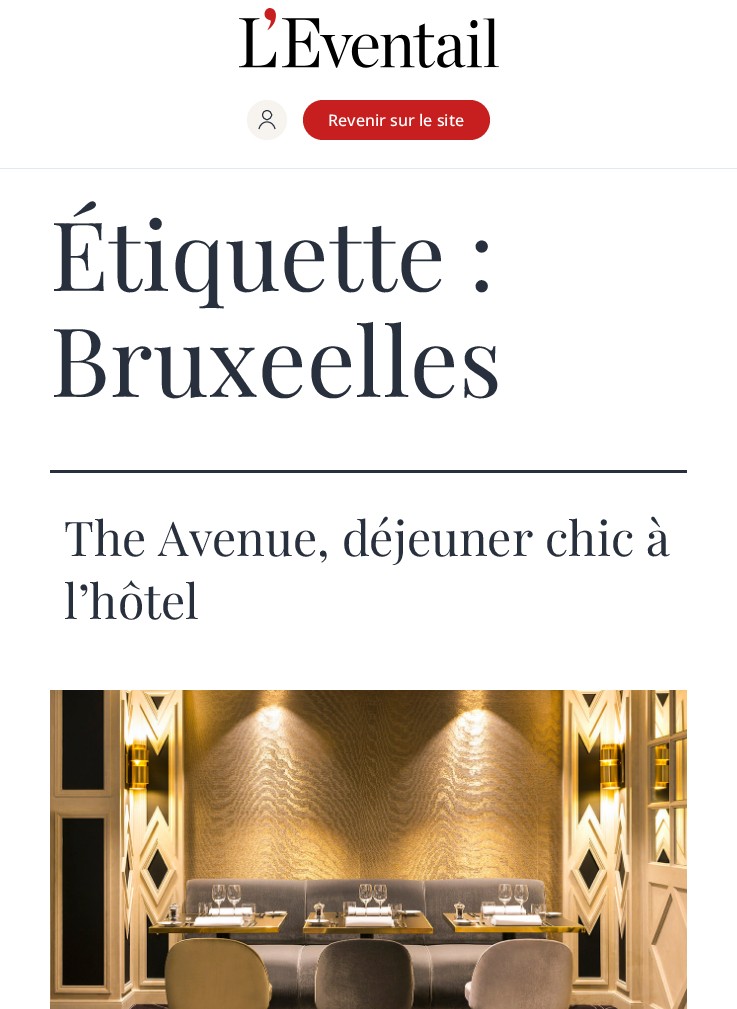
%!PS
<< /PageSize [737 1009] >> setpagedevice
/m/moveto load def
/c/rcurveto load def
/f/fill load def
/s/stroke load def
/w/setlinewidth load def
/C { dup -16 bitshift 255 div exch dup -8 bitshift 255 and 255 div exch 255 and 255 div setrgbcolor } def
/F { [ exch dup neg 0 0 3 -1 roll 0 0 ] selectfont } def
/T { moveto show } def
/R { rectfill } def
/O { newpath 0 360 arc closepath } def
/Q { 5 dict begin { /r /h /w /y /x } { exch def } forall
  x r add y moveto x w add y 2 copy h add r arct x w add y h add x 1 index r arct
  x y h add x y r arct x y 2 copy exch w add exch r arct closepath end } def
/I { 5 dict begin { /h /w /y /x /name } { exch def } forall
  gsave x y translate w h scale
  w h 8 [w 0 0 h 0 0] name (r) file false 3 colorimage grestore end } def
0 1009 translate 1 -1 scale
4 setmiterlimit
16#FFFFFF C
0 0 737 1009 R
16#E2E8F0 C
0 168 737 1 R
(1.rgb) 239 8 260 60 I
16#F7F4EF C
267 120 20 O f
16#28303D C
.9 w
267 115 4.5 O s
275 129 m -2 -9.5 -14 -9.5 -16 0 c s
16#C71F1F C
303 100 187 40 20 Q f
/NotoSans-Medium 16 F
16#FFFFFF C
(Revenir sur le site) 328 126 T
16#28303D C
50 470 637 3 R
/PlayfairDisplay-Regular 96 F
(Étiquette :) 50 291 T
(Bruxeelles) 50 397 T
/PlayfairDisplay-Regular 48 F
(The Avenue, déjeuner chic à) 64 556 T
(l’hôtel) 64 619 T
(2.rgb) 50 690 637 319 I
showpage
